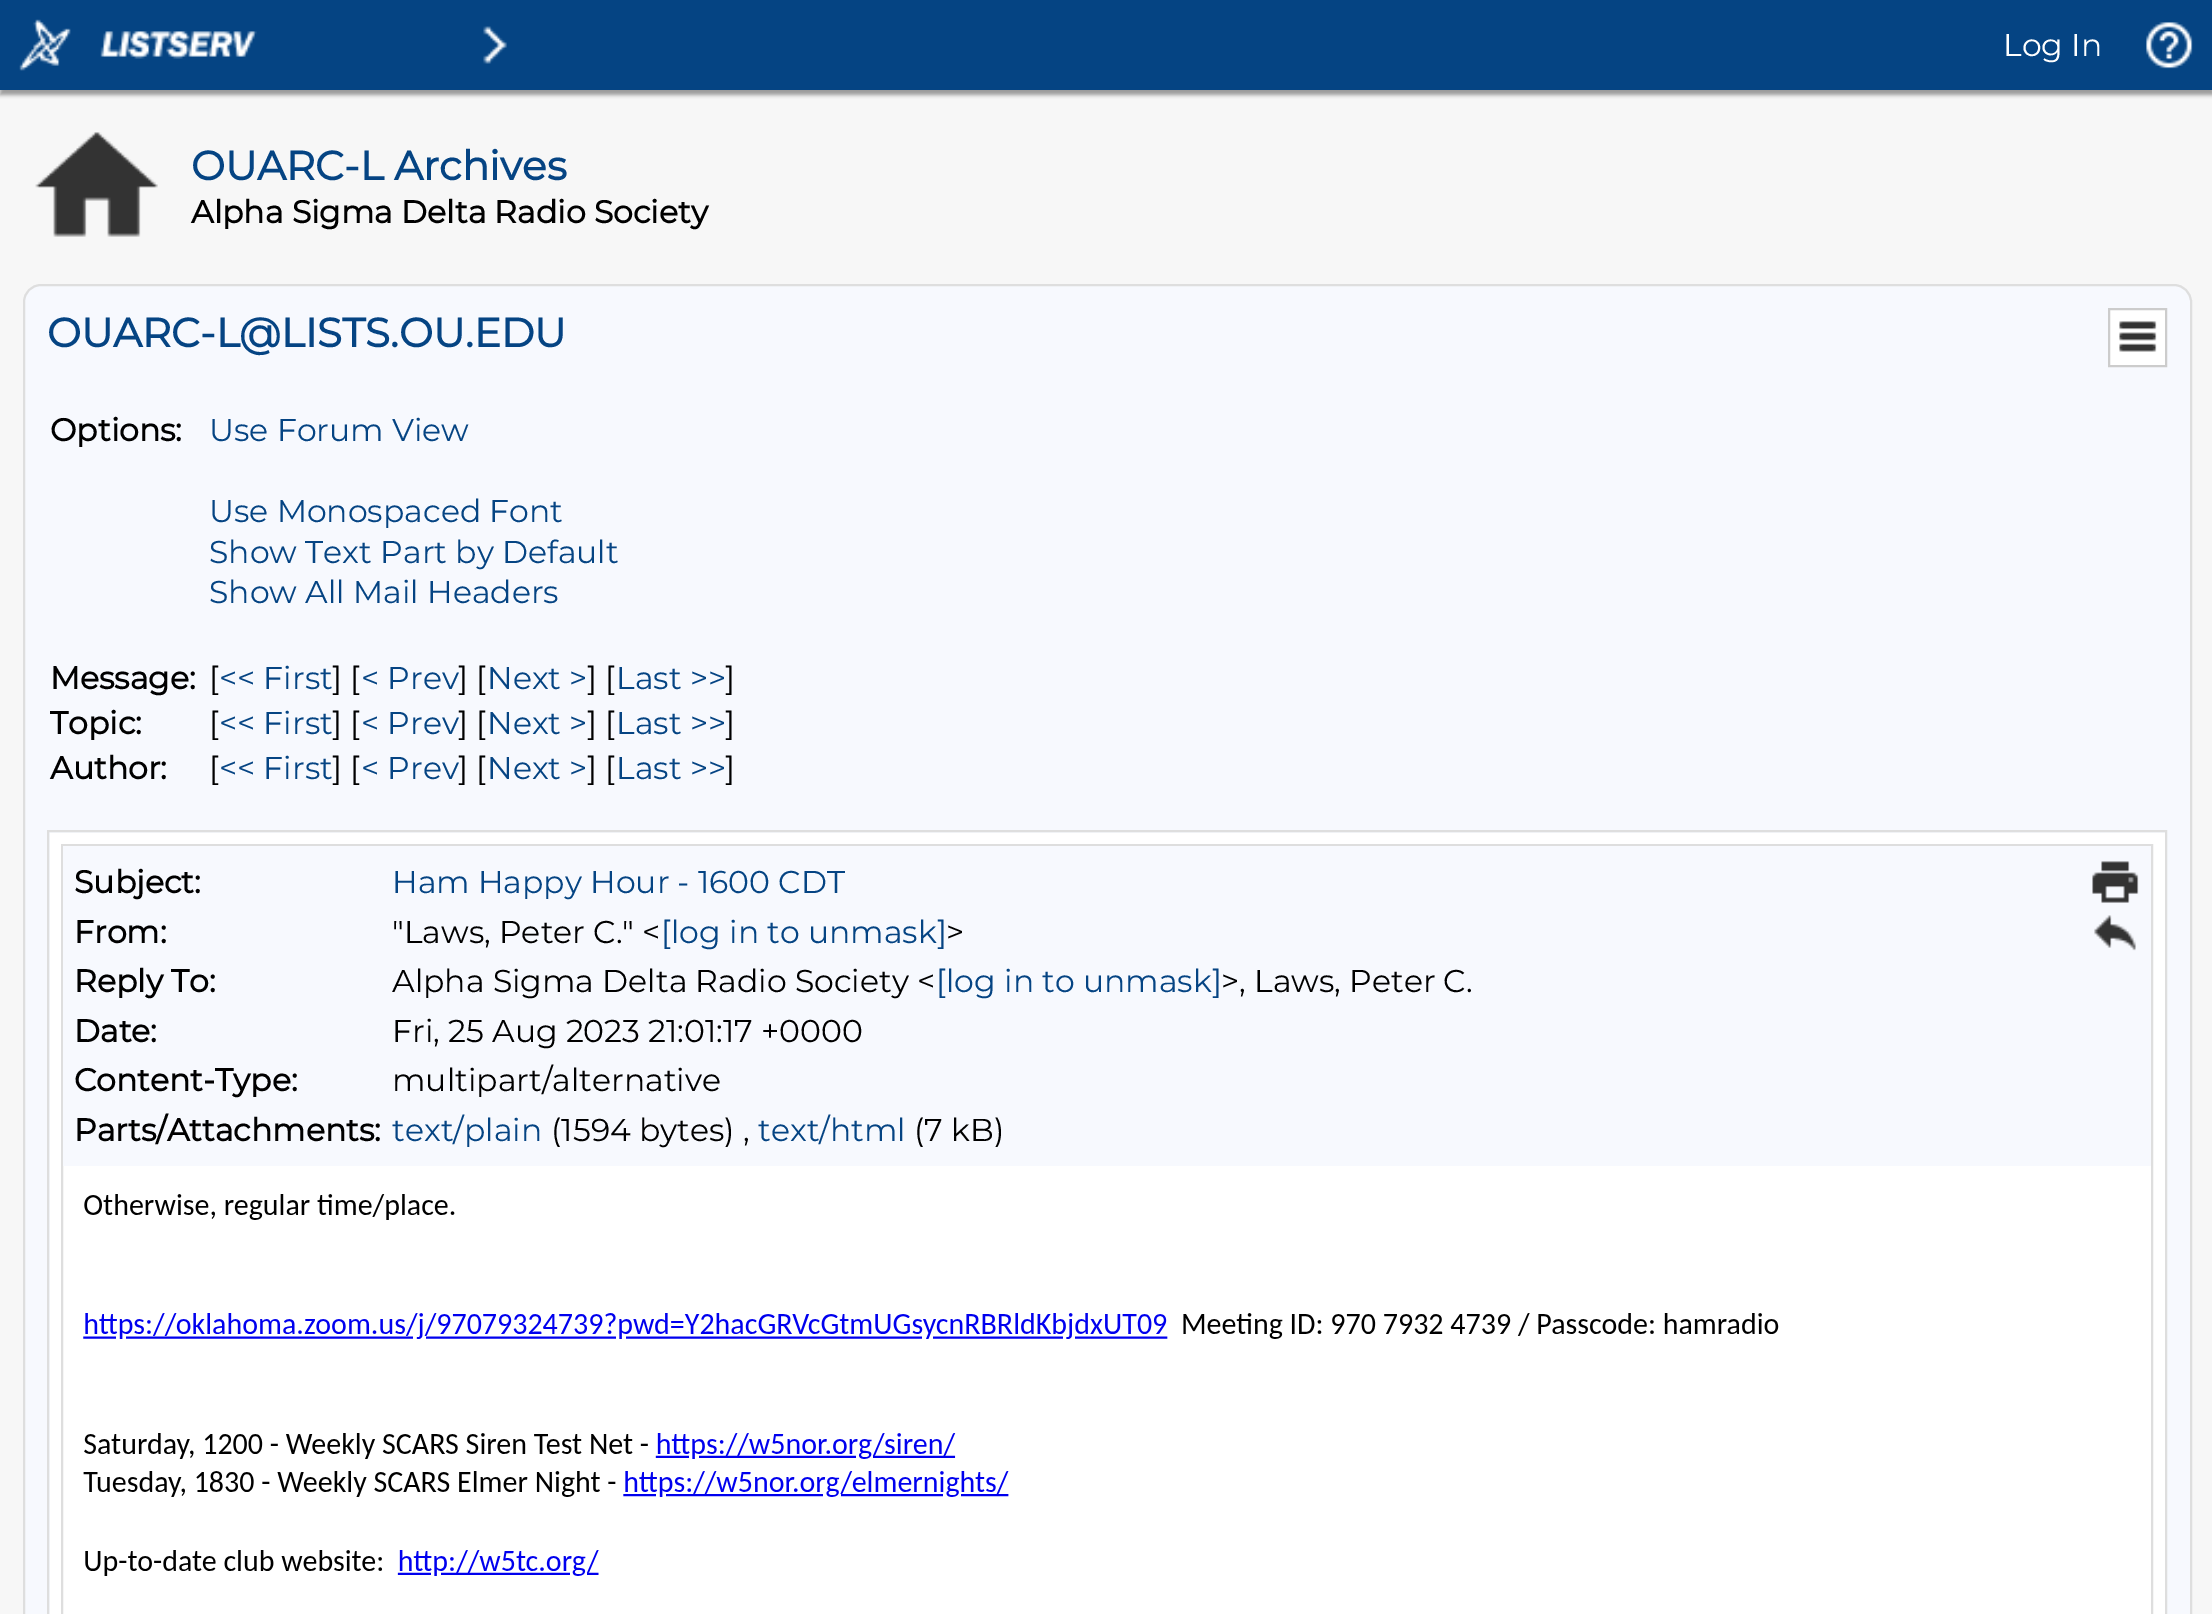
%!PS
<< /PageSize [2212 1614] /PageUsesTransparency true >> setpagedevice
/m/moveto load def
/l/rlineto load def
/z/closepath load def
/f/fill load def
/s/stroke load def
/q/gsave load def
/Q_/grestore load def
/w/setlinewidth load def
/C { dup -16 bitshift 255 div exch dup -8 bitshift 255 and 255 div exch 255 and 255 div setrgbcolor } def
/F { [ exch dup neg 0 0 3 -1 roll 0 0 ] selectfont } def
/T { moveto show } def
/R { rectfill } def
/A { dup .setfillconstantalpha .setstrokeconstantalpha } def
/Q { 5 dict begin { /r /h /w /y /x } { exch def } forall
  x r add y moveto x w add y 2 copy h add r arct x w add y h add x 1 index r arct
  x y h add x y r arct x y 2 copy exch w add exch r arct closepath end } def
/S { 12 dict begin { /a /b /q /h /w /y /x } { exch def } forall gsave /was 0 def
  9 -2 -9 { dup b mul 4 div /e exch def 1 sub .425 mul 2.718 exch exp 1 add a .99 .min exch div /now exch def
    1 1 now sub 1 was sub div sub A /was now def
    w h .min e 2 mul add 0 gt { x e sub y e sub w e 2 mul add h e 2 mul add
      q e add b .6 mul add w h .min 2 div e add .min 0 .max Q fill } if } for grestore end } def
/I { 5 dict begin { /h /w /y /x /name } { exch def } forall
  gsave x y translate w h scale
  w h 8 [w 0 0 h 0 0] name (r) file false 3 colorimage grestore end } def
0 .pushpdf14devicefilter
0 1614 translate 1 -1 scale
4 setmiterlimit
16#F7F7F7 C
0 0 2212 1614 R
16#999999 C
0 5 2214 90 0 2 1 S
16#054483 C
0 0 2212 90 R
(1.rgb) 19 19 52 52 I
(2.rgb) 100 31 157 28 I
(3.rgb) 483 26 24 38 I
/Montserrat-Thin 31.5 F
16#FFFFFF C
(Log In) 2003 56 T
(4.rgb) 2146 22 47 47 I
(5.rgb) 35 132 123 105 I
/Montserrat-Bold 40.5 F
16#054483 C
(OUARC-L Archives) 191 180 T
/Montserrat-Bold 31.5 F
16#000000 C
(Alpha Sigma Delta Radio Society) 191 223 T
16#F7F9FE C
24 285 2167 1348 17 Q q f Q_
16#DEDEDE C
2 w
s
/Montserrat-Bold 40.5 F
16#054483 C
(OUARC-L@LISTS.OU.EDU) 47 347 T
16#FFFFFF C
2109 309 m 57 0 l 0 57 l -57 0 l z q f Q_
16#CCCCCC C
s
(6.rgb) 2119 321 38 31 I
/Montserrat-Bold 31.5 F
16#000000 C
(Options:) 50 441 T
/Montserrat-Thin 31.5 F
16#054483 C
(Use Forum View) 209 441 T
(Use Monospaced Font) 209 522 T
(Show Text Part by Default) 209 563 T
(Show All Mail Headers) 209 603 T
/Montserrat-Bold 31.5 F
16#000000 C
(Message:) 50 689 T
/Montserrat-Thin 31.5 F
([) 209 689 T
16#054483 C
(<< First) 219 689 T
16#000000 C
(] [) 332 689 T
16#054483 C
(< Prev) 361 689 T
16#000000 C
(] [) 458 689 T
16#054483 C
(Next >) 487 689 T
16#000000 C
(] [) 587 689 T
16#054483 C
(Last >>) 616 689 T
16#000000 C
(]) 725 689 T
/Montserrat-Bold 31.5 F
(Topic:) 50 734 T
/Montserrat-Thin 31.5 F
([) 209 734 T
16#054483 C
(<< First) 219 734 T
16#000000 C
(] [) 332 734 T
16#054483 C
(< Prev) 361 734 T
16#000000 C
(] [) 458 734 T
16#054483 C
(Next >) 487 734 T
16#000000 C
(] [) 587 734 T
16#054483 C
(Last >>) 616 734 T
16#000000 C
(]) 725 734 T
/Montserrat-Bold 31.5 F
(Author:) 50 779 T
/Montserrat-Thin 31.5 F
([) 209 779 T
16#054483 C
(<< First) 219 779 T
16#000000 C
(] [) 332 779 T
16#054483 C
(< Prev) 361 779 T
16#000000 C
(] [) 458 779 T
16#054483 C
(Next >) 487 779 T
16#000000 C
(] [) 587 779 T
16#054483 C
(Last >>) 616 779 T
16#000000 C
(]) 725 779 T
16#DEDEDE C
48 831 2118 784 rectstroke
16#FFFFFF C
50 833 2115 781 R
16#DEDEDE C
62 845 2090 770 rectstroke
16#F7F9FE C
63 846 2088 320 R
/Montserrat-Bold 31.5 F
16#000000 C
(Subject:) 74 893 T
/Montserrat-Thin 31.5 F
16#054483 C
(Ham Happy Hour - 1600 CDT) 392 893 T
/Montserrat-Bold 31.5 F
16#000000 C
(From:) 74 943 T
/Montserrat-Thin 31.5 F
("Laws, Peter C." <) 392 943 T
16#054483 C
([log in to unmask]) 661 943 T
16#000000 C
(>) 946 943 T
/Montserrat-Bold 31.5 F
(Reply To:) 74 992 T
/Montserrat-Thin 31.5 F
(Alpha Sigma Delta Radio Society <) 392 992 T
16#054483 C
([log in to unmask]) 936 992 T
16#000000 C
(>, Laws, Peter C.) 1221 992 T
/Montserrat-Bold 31.5 F
(Date:) 74 1042 T
/Montserrat-Thin 31.5 F
(Fri, 25 Aug 2023 21:01:17 +0000) 392 1042 T
/Montserrat-Bold 31.5 F
(Content-Type:) 74 1091 T
/Montserrat-Thin 31.5 F
(multipart/alternative) 392 1091 T
/Montserrat-Bold 31.5 F
(Parts/Attachments:) 74 1141 T
/Montserrat-Thin 31.5 F
16#054483 C
(text/plain) 392 1141 T
16#000000 C
(\(1594 bytes\) ,) 551 1141 T
16#054483 C
(text/html) 758 1141 T
16#000000 C
(\(7 kB\)) 914 1141 T
(7.rgb) 2092 861 47 42 I
(8.rgb) 2094 915 42 36 I
(9.rgb) 83 1194 1696 382 I
.poppdf14devicefilter showpage
